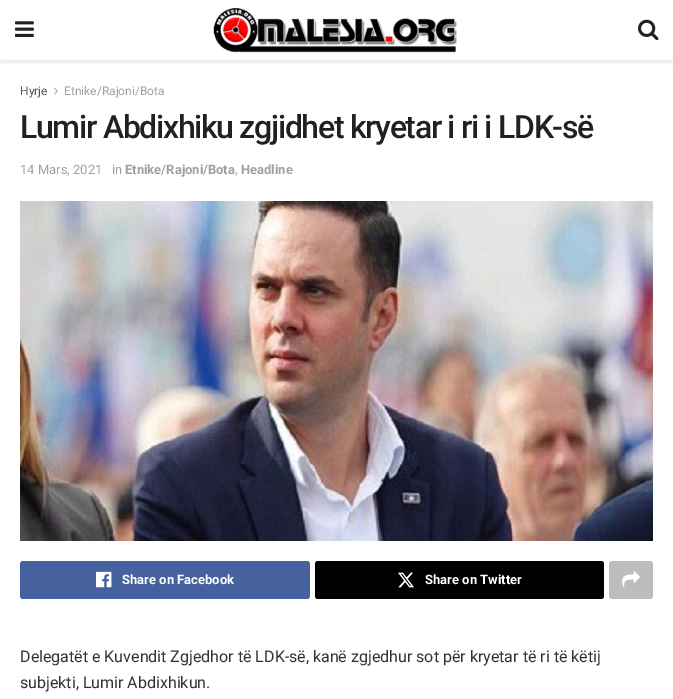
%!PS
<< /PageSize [673 699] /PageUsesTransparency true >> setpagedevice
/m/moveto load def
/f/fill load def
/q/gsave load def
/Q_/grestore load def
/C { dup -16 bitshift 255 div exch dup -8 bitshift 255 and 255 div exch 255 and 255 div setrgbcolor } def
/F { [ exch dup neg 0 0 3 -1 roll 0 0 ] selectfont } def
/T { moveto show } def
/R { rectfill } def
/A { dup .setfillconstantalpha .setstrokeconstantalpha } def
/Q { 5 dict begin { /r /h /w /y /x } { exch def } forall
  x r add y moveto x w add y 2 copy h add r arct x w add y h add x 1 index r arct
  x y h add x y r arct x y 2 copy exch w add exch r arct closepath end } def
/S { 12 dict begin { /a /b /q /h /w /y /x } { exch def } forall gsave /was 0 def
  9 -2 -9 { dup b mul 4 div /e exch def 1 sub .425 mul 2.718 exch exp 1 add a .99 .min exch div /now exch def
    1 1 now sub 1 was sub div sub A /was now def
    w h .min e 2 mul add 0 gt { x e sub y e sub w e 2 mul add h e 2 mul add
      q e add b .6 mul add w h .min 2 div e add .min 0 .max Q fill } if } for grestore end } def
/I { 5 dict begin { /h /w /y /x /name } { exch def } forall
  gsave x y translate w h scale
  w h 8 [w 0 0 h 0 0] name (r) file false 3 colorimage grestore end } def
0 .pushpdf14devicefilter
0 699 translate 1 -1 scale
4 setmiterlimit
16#FFFFFF C
0 0 673 699 R
q
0 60 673 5 rectclip
16#000000 C
0 2 673 60 0 3 .1 S
Q_
(1.rgb) 15 21 19 16 I
(2.rgb) 213 8 244 45 I
(3.rgb) 638 19 21 22 I
/Roboto-Regular 12 F
16#53585C C
(Hyrje) 20 95 T
(4.rgb) 54 87 4 8 I
16#A0A0A0 C
(Etnike/Rajoni/Bota) 64 95 T
/Roboto-Medium 32 F
16#212121 C
20 138 m -1.3 0 (Lumir Abdixhiku zgjidhet kryetar i ri i LDK-së) ashow
/Roboto-Regular 13 F
16#A0A0A0 C
(14 Mars, 2021) 20 174 T
(in) 112 174 T
/Roboto-Bold 13 F
(Etnike/Rajoni/Bota) 125 174 T
/Roboto-Regular 13 F
(,) 235 174 T
/Roboto-Bold 13 F
(Headline) 241 174 T
(5.rgb) 20 201 633 340 I
16#45629F C
20 561 290 38 3 Q f
(6.rgb) 96 571 16 17 I
16#FFFFFF C
(Share on Facebook) 122 584 T
16#000000 C
315 561 289 38 3 Q f
(7.rgb) 398 572 16 16 I
16#FFFFFF C
(Share on Twitter) 425 584 T
16#BDBDBD C
609 561 44 38 3 Q f
(8.rgb) 622 571 18 17 I
/Roboto-Regular 16 F
16#333333 C
(Delegatët e Kuvendit Zgjedhor të LDK-së, kanë zgjedhur sot për kryetar të ri të këtij) 20 662 T
(subjekti, Lumir Abdixhikun.) 20 688 T
.poppdf14devicefilter showpage
